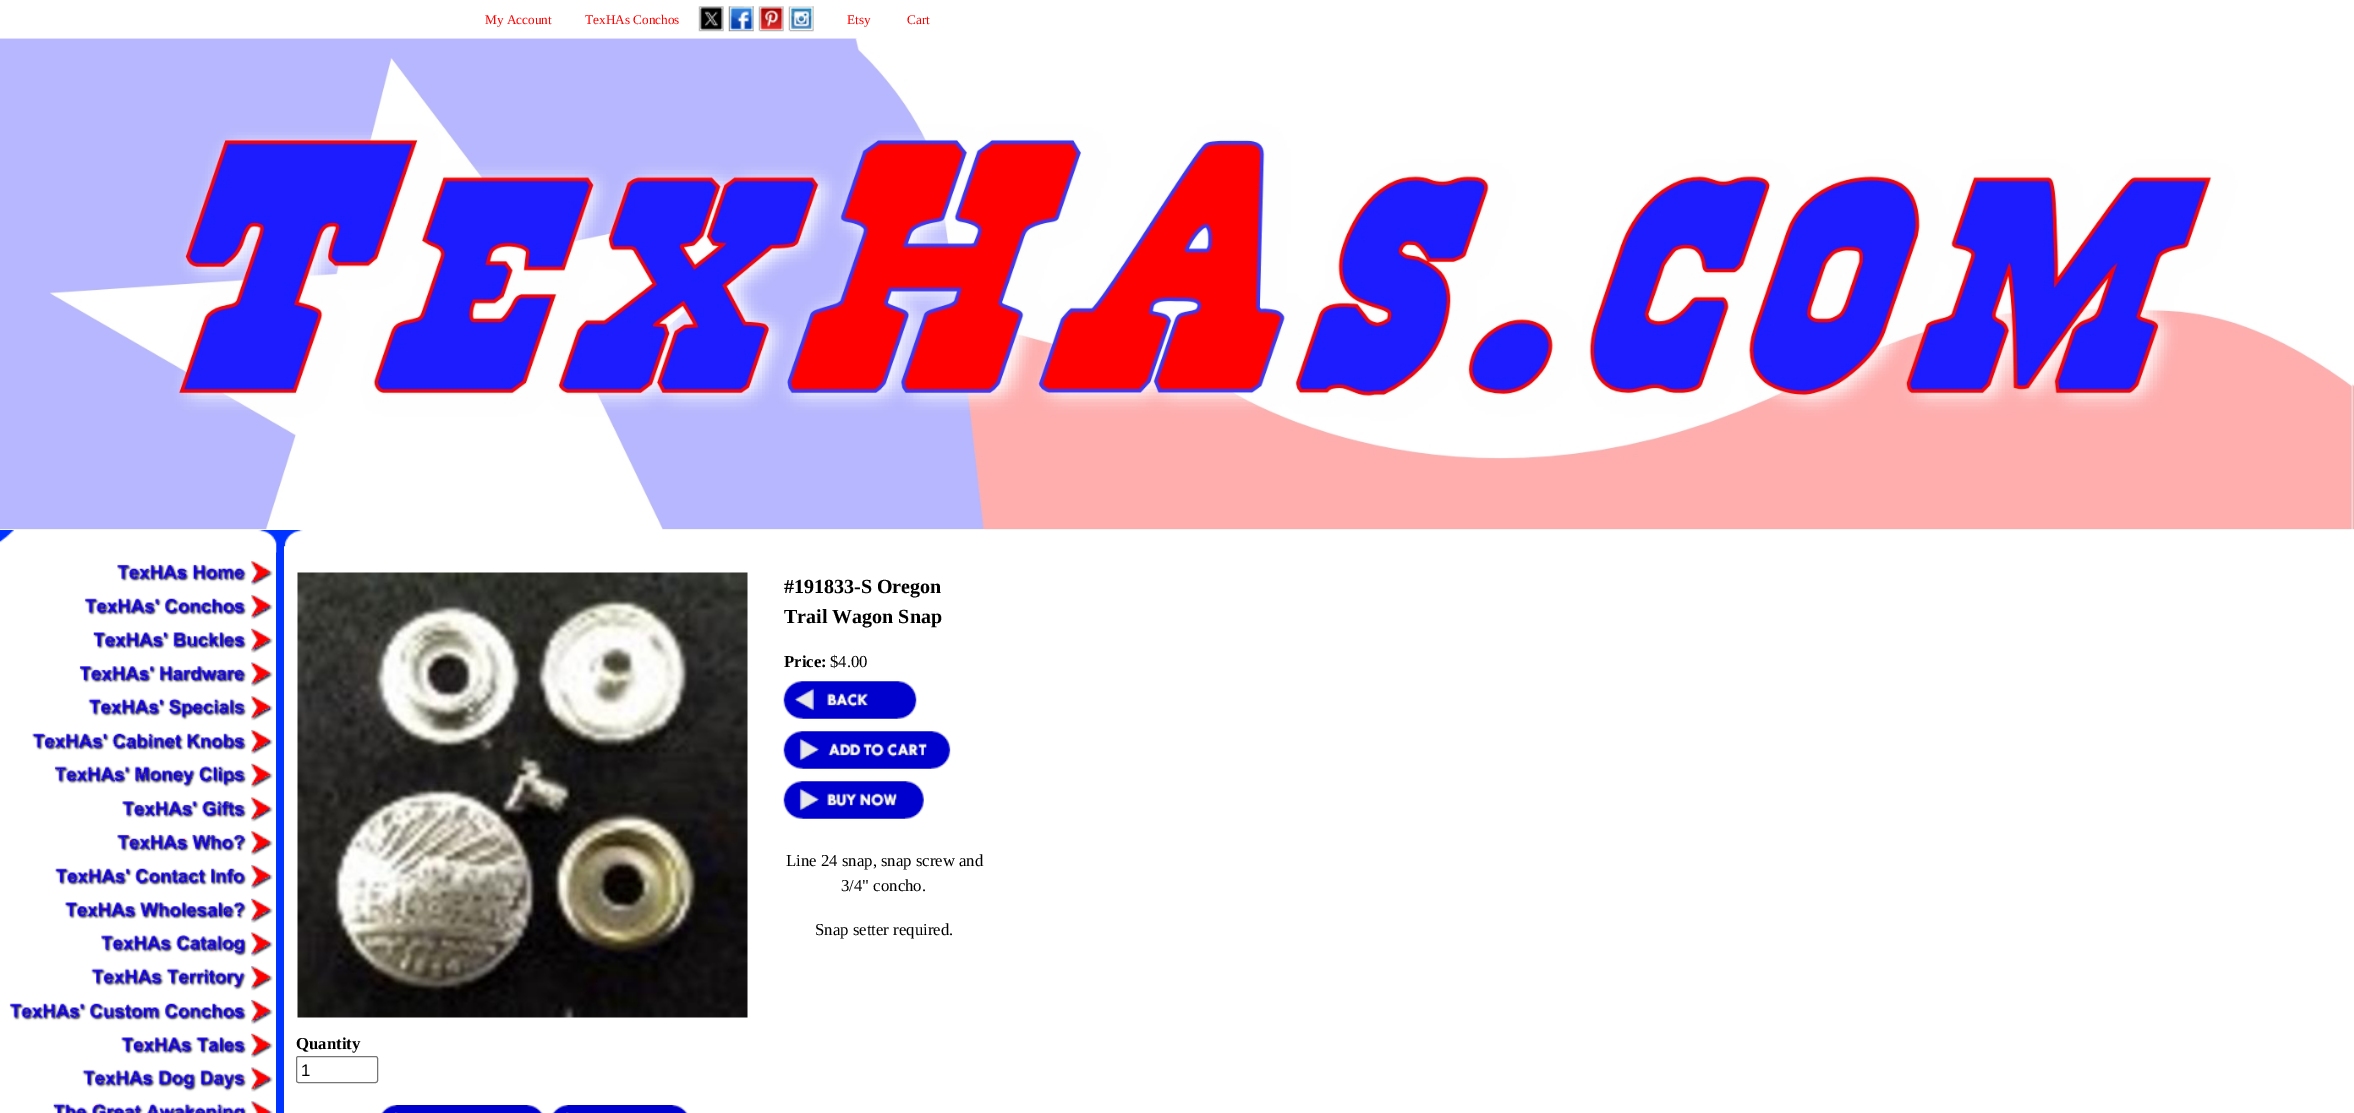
%!PS
<< /PageSize [2354 1113] >> setpagedevice
/s/stroke load def
/C { dup -16 bitshift 255 div exch dup -8 bitshift 255 and 255 div exch 255 and 255 div setrgbcolor } def
/F { [ exch dup neg 0 0 3 -1 roll 0 0 ] selectfont } def
/T { moveto show } def
/R { rectfill } def
/Q { 5 dict begin { /r /h /w /y /x } { exch def } forall
  x r add y moveto x w add y 2 copy h add r arct x w add y h add x 1 index r arct
  x y h add x y r arct x y 2 copy exch w add exch r arct closepath end } def
/I { 5 dict begin { /h /w /y /x /name } { exch def } forall
  gsave x y translate w h scale
  w h 8 [w 0 0 h 0 0] name (r) file false 3 colorimage grestore end } def
0 1113 translate 1 -1 scale
4 setmiterlimit
16#FFFFFF C
0 0 2354 1113 R
/LiberationSerif-Regular 13.25 F
16#FF0000 C
(My Account) 485 24 T
(TexHAs Conchos) 585 24 T
(1.rgb) 698 6 26 26 I
(2.rgb) 728 6 26 26 I
(3.rgb) 758 6 26 26 I
(4.rgb) 788 6 26 26 I
(Etsy) 847 24 T
(Cart) 907 24 T
(5.rgb) 0 38 2354 492 I
(6.rgb) 0 38 2353 492 I
(7.rgb) 0 530 14 13 I
16#0033FF C
276 530 8 583 R
(8.rgb) 258 530 19 23 I
(9.rgb) 117 561 156 25 I
(10.rgb) 84 594 189 26 I
(11.rgb) 93 628 180 25 I
(12.rgb) 79 662 194 25 I
(13.rgb) 88 696 185 25 I
(14.rgb) 32 729 241 26 I
(15.rgb) 54 763 219 26 I
(16.rgb) 122 797 151 25 I
(17.rgb) 117 831 156 25 I
(18.rgb) 54 864 219 26 I
(19.rgb) 64 898 209 25 I
(20.rgb) 101 932 172 25 I
(21.rgb) 91 966 182 25 I
(22.rgb) 9 999 264 26 I
(23.rgb) 121 1033 152 25 I
(24.rgb) 82 1067 191 25 I
(25.rgb) 53 1101 220 12 I
(26.rgb) 284 530 19 17 I
/LiberationSerif-Bold 20 F
16#000000 C
(#191833-S Oregon) 784 593 T
(Trail Wagon Snap) 784 623 T
/LiberationSerif-Bold 16.75 F
(Price:) 784 667 T
/LiberationSerif-Regular 16.75 F
($4.00) 830 667 T
(27.rgb) 783 681 134 38 I
(28.rgb) 783 731 168 38 I
(29.rgb) 783 781 141 38 I
(Line 24 snap, snap screw and) 786 866 T
(3/4" concho.) 841 891 T
(Snap setter required.) 815 935 T
(30.rgb) 297 572 451 446 I
/LiberationSerif-Bold 16.75 F
(Quantity) 296 1049 T
16#767676 C
296.5 1056.5 81 26 2 Q s
/LiberationSans-Regular 16.75 F
16#000000 C
(1) 301 1076 T
(31.rgb) 381 1105 162 8 I
(32.rgb) 552 1105 136 8 I
showpage
